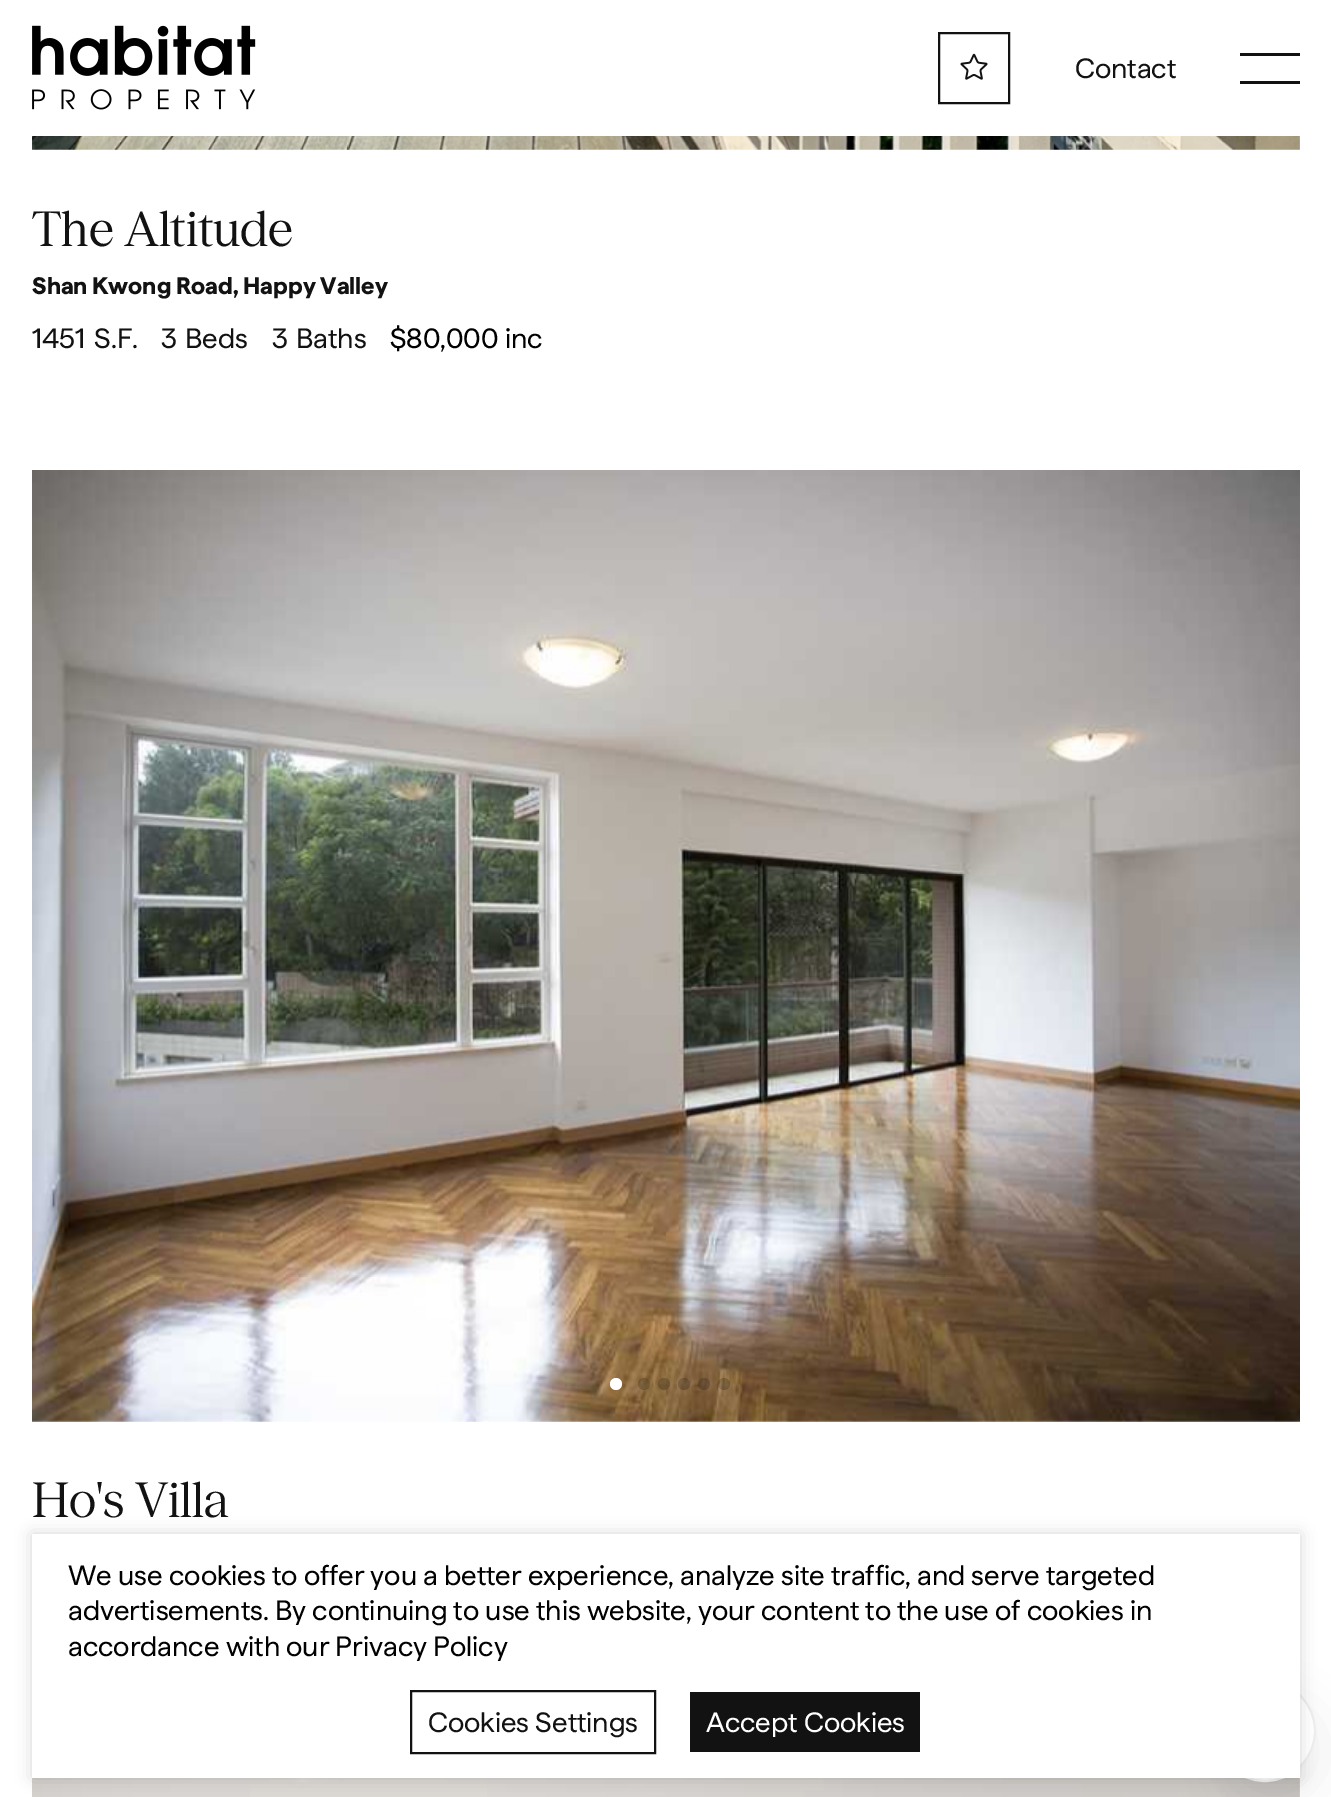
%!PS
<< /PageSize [1331 1797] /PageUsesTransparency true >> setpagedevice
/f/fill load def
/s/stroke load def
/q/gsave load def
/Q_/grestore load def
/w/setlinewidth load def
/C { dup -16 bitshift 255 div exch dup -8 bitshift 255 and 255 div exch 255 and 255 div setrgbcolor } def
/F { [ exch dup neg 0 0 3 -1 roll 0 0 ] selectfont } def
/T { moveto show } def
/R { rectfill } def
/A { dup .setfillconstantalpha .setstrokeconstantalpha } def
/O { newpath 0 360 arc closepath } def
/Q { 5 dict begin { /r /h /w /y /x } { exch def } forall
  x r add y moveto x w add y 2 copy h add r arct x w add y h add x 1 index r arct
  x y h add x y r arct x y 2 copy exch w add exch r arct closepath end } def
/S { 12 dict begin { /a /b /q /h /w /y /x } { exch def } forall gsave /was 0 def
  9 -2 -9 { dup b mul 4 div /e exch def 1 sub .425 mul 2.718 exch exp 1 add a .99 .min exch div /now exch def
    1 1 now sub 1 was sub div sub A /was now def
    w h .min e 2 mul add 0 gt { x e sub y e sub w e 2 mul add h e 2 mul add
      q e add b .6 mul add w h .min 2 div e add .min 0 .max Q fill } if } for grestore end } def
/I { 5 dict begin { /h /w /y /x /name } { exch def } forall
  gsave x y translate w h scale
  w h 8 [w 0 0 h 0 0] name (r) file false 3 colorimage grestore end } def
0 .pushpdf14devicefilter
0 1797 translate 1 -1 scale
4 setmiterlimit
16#FFFFFF C
0 0 1331 1797 R
(1.rgb) 32 25 224 85 I
16#121212 C
2 w
939 33 70 70 rectstroke
(2.rgb) 960 53 28 27 I
/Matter-Regular 28 F
(Contact) 1075 78 T
16#111111 C
1240 53 60 3 R
1240 81 60 3 R
(3.rgb) 32 136 1268 14 I
/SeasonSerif-Regular 48 F
16#121212 C
(The Altitude) 32 246 T
/Matter-Bold 24 F
(Shan Kwong Road, Happy Valley) 32 294 T
/Matter-Regular 28 F
(1451) 32 348 T
(S.F.) 94 348 T
(3) 161 348 T
(Beds) 185 348 T
(3) 272 348 T
(Baths) 296 348 T
16#000000 C
($80,000 inc) 390 348 T
(4.rgb) 32 470 1268 952 I
16#FFFFFF C
616 1384 6 O f
0.2 A
16#000000 C
644 1384 6 O f
664 1384 6 O f
684 1384 6 O f
704 1384 6 O f
724 1384 6 O f
/SeasonSerif-Regular 48 F
1 A
16#121212 C
(Ho's Villa) 32 1517 T
(5.rgb) 32 1778 1268 19 I
16#000000 C
1224 1700 102 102 51 25 .05 S
16#FFFFFF C
1265 1731 50 O q f Q_
16#EEEEEE C
s
16#000000 C
32 1534 1268 244 0 8 .16 S
16#FFFFFF C
32 1534 1268 244 R
/Matter-Regular 28 F
16#000000 C
(We use cookies to offer you a better experience, analyze site traffic, and serve targeted) 68 1585 T
(advertisements. By continuing to use this website, your content to the use of cookies in) 68 1620 T
(accordance with our Privacy Policy) 68 1656 T
16#121212 C
411 1691 244 62 rectstroke
(Cookies Settings) 428 1732 T
690 1692 230 60 R
16#FFFFFF C
(Accept Cookies) 706 1732 T
.poppdf14devicefilter showpage
